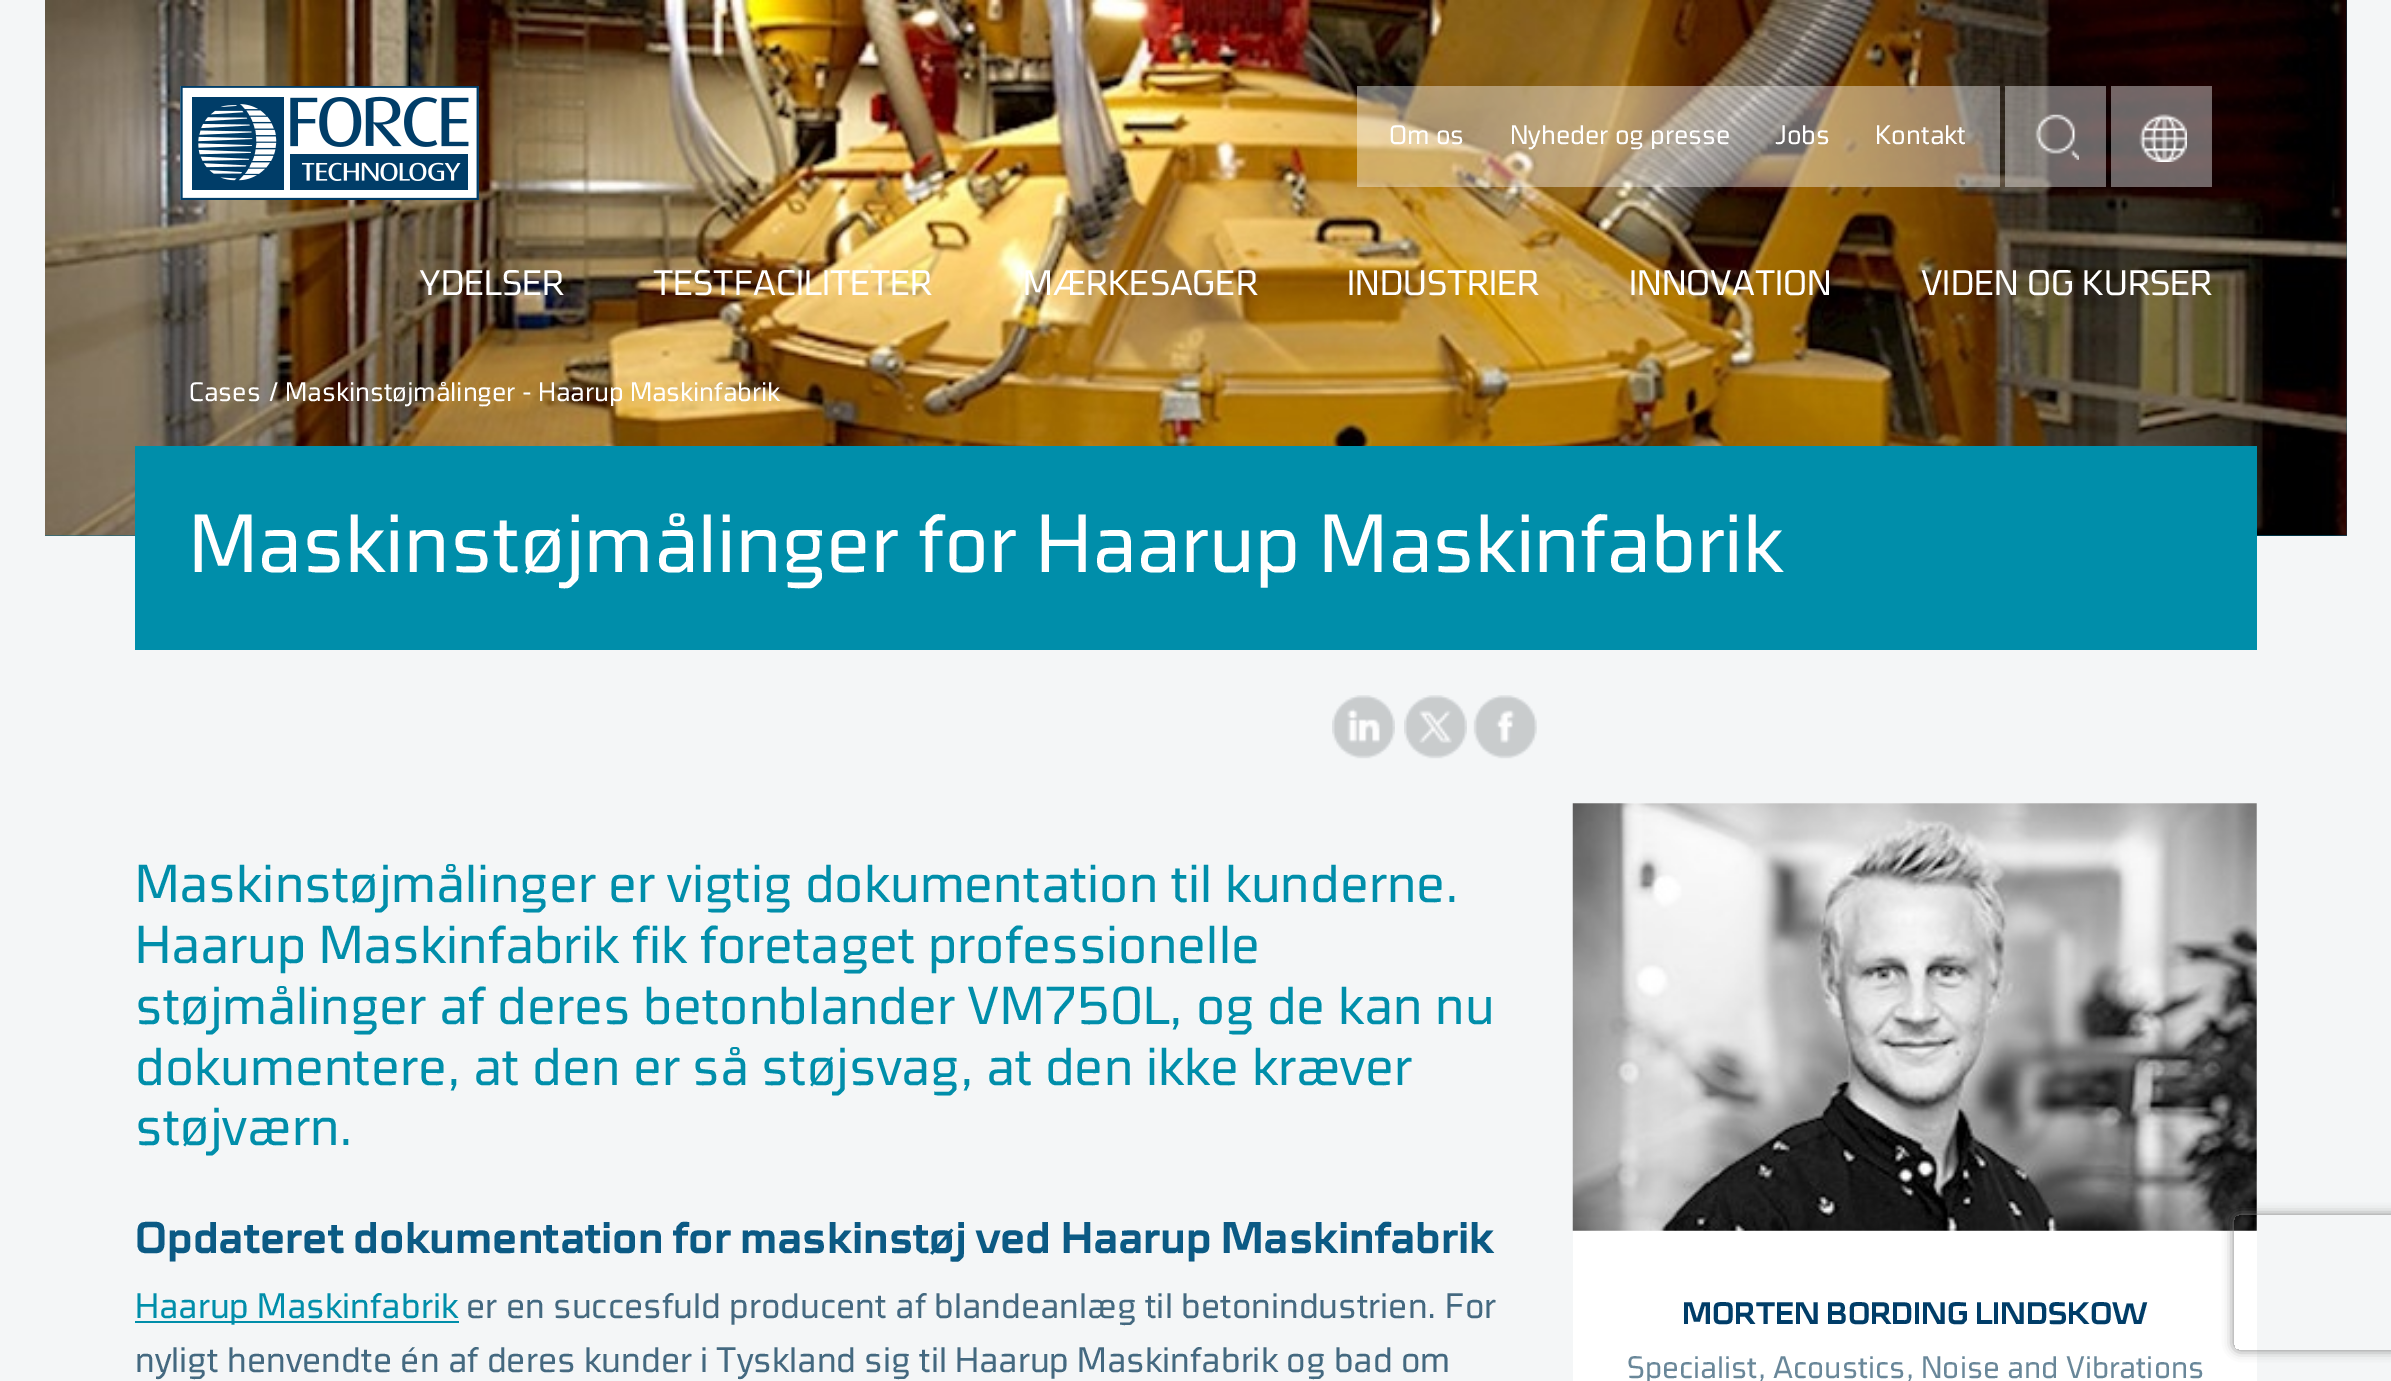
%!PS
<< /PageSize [2391 1381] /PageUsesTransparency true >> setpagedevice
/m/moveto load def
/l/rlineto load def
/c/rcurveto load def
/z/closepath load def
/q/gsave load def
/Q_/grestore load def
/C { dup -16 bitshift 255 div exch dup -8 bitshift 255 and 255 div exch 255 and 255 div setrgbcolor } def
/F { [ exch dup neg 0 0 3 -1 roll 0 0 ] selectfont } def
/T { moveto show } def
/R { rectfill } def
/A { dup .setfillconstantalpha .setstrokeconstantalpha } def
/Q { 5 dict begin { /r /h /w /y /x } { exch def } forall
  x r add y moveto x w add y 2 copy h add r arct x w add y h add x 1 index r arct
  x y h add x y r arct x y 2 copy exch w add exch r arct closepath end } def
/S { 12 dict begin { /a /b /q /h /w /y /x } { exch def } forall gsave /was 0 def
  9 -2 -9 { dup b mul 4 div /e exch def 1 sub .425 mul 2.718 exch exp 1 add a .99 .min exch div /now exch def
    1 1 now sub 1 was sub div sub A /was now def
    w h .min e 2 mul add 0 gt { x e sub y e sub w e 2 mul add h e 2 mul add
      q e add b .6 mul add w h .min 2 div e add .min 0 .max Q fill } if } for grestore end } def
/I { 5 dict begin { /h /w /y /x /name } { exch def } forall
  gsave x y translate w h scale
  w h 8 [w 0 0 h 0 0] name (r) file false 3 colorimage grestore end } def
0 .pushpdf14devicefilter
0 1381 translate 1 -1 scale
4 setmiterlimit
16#F4F6F7 C
0 0 2391 1381 R
16#00698B C
45 0 2302 536 R
(1.rgb) 45 0 2302 536 I
(2.rgb) 180 86 299 114 I
0.4 A
16#FFFFFF C
1357 86 130 101 R
/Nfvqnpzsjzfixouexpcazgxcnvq-Light 27 F
1 A
(Om os) 1389 144 T
0.4 A
1487 86 266 101 R
1 A
(Nyheder og presse) 1510 144 T
0.4 A
1753 86 101 101 R
1 A
(Jobs) 1775 144 T
0.4 A
1854 86 146 101 R
1 A
(Kontakt) 1875 144 T
0.4 A
2005 86 101 101 R
1 A
(3.rgb) 2035 114 44 46 I
0.4 A
2111 86 101 101 R
1 A
(4.rgb) 2139 114 48 48 I
/Nfvqnpzsjzfixouexpcazgxcnvq-Light 36 F
(YDELSER) 419 295 T
(TESTFACILITETER) 653 295 T
(MÆRKESAGER) 1023 295 T
(INDUSTRIER) 1347 295 T
(INNOVATION) 1629 295 T
(VIDEN OG KURSER) 1921 295 T
/Nfvqnpzsjzfixouexpcazgxcnvq-Light 27 F
(Cases / Maskinstøjmålinger - Haarup Maskinfabrik) 189 401 T
16#008EAA C
135 446 2122 204 R
/Nfvqnpzsjzfixouexpcazgxcnvq-Light 83.25 F
16#FFFFFF C
(Maskinstøjmålinger for Haarup Maskinfabrik) 189 572 T
(5.rgb) 1332 695 63 64 I
(6.rgb) 1404 695 63 64 I
(7.rgb) 1473 695 64 64 I
/Nfvqnpzsjzfixouexpcazgxcnvq-Light 54 F
16#008EAA C
(Maskinstøjmålinger er vigtig dokumentation til kunderne.) 135 902 T
(Haarup Maskinfabrik fik foretaget professionelle) 135 963 T
(støjmålinger af deres betonblander VM750L, og de kan nu) 135 1024 T
(dokumentere, at den er så støjsvag, at den ikke kræver) 135 1085 T
(støjværn.) 135 1145 T
/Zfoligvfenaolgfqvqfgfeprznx-Bold 45 F
16#0B5A84 C
(Opdateret dokumentation for maskinstøj ved Haarup Maskinfabrik) 135 1253 T
16#008EAA C
135 1321 324 2 R
/Nfvqnpzsjzfixouexpcazgxcnvq-Light 36 F
(Haarup Maskinfabrik) 135 1318 T
16#446980 C
(er en succesfuld producent af blandeanlæg til betonindustrien. For) 466 1318 T
(nyligt henvendte én af deres kunder i Tyskland sig til Haarup Maskinfabrik og bad om) 135 1372 T
16#FFFFFF C
1573 803 684 578 R
(8.rgb) 1572 803 685 428 I
/Zfoligvfenaolgfqvqfgfeprznx-Bold 31.5 F
16#003D68 C
(MORTEN BORDING LINDSKOW) 1682 1324 T
/Nfvqnpzsjzfixouexpcazgxcnvq-Light 31.5 F
16#698799 C
(Specialist, Acoustics, Noise and Vibrations) 1627 1378 T
q
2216 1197 m 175 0 l 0 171 l -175 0 l z 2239 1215 m 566 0 l 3 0 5 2 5 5 c 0 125 l 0 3 -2 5 -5 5 c -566 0 l -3 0 -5 -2 -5 -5 c 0 -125 l 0 -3 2 -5 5 -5 c z eoclip newpath
16#808080 C
2234 1215 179 135 5 5.5 1 S
Q_
.poppdf14devicefilter showpage
